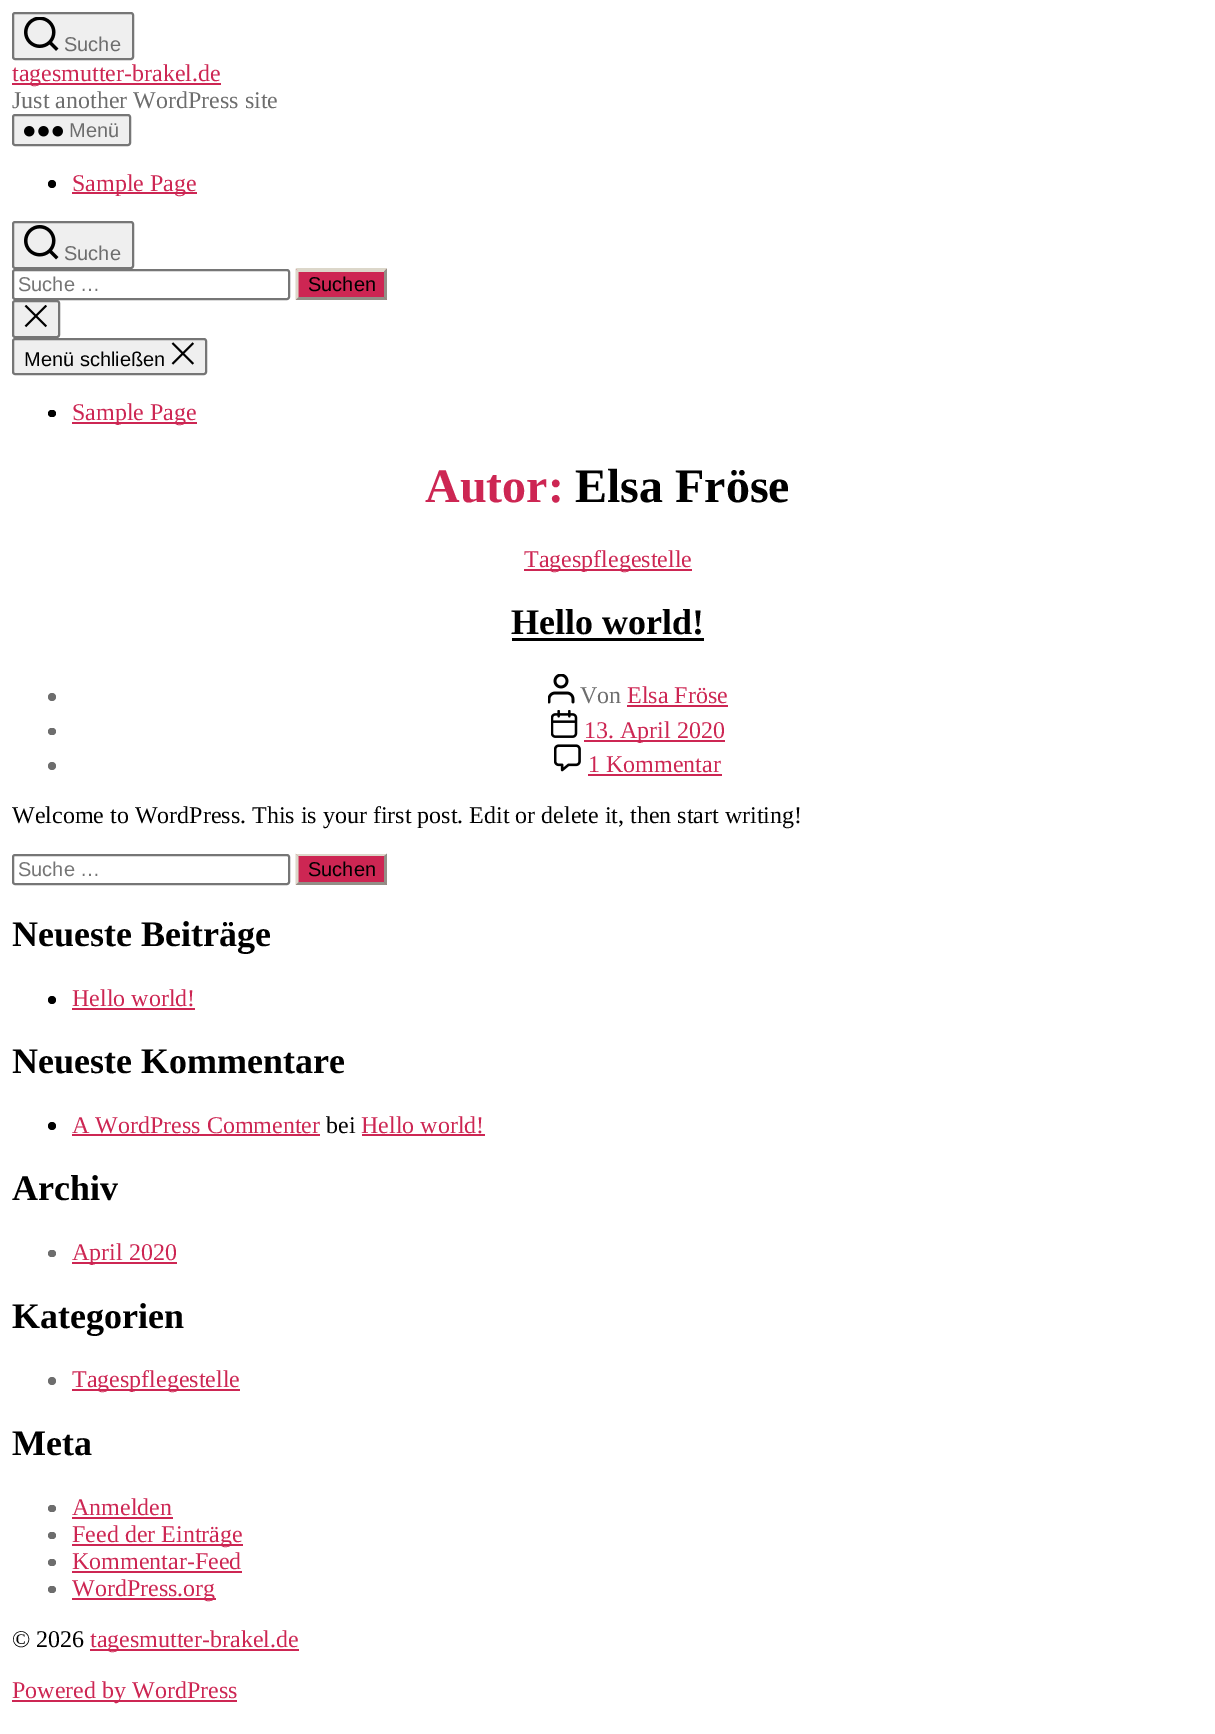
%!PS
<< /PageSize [1215 1734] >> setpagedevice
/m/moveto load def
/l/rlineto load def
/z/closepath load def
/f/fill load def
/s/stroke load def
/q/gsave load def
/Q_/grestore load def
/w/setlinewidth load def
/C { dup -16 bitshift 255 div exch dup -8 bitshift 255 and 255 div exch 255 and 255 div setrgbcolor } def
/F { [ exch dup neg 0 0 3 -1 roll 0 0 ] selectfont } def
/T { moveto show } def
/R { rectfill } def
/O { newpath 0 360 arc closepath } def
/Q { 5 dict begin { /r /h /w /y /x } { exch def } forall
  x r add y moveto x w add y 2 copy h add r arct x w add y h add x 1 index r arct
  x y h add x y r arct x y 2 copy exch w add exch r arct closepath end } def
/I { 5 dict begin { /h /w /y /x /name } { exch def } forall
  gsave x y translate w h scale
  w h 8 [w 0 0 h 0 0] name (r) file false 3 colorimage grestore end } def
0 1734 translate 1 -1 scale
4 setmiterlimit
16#FFFFFF C
0 0 1215 1734 R
16#EFEFEF C
13 13 120 46 2 Q q f Q_
16#767676 C
2 w
s
(1.rgb) 24 17 35 34 I
/LiberationSans-Regular 20 F
16#6D6D6D C
(Suche) 64 51 T
16#CD2653 C
12 83 209 2 R
/LiberationSerif-Regular 24 F
(tagesmutter-brakel.de) 12 81 T
16#6D6D6D C
(Just another WordPress site) 12 108 T
16#EFEFEF C
13 115 117 30 2 Q q f Q_
16#767676 C
s
(2.rgb) 24 126 39 11 I
/LiberationSans-Regular 20 F
16#6D6D6D C
(Menü) 69 137 T
16#000000 C
52 184 4 O f
16#CD2653 C
72 192 125 2 R
/LiberationSerif-Regular 24 F
(Sample Page) 72 191 T
16#EFEFEF C
13 222 120 46 2 Q q f Q_
16#767676 C
s
(3.rgb) 24 225 35 35 I
/LiberationSans-Regular 20 F
16#6D6D6D C
(Suche) 64 260 T
16#767676 C
13 270 276 29 2 Q s
16#757575 C
(Suche …) 18 291 T
16#CD2653 C
296 269 91 31 R
16#DCD7CA C
296 268 m 91 0 l -3 4 l -86 0 l z f
16#938F87 C
387 268.5 m 0 31.5 l -3 -3 l 0 -25.5 l z f
387 300 m -91 0 l 2 -3 l 86 0 l z f
16#DCD7CA C
295.5 300 m 0 -31.5 l 3 3 l 0 25.5 l z f
16#000000 C
(Suchen) 308 291 T
16#EFEFEF C
13 301 46 36 2 Q q f Q_
16#767676 C
s
(4.rgb) 24 305 23 23 I
16#EFEFEF C
13 339 193 35 2 Q q f Q_
16#767676 C
s
16#000000 C
(Menü schließen) 24 366 T
(5.rgb) 171 342 23 23 I
48 410 8 7 3.5 Q f
16#CD2653 C
72 422 125 2 R
/LiberationSerif-Regular 24 F
(Sample Page) 72 420 T
/LiberationSerif-Bold 48 F
(Autor:) 425 502 T
16#000000 C
(Elsa Fröse) 575 502 T
16#CD2653 C
524 569 168 2 R
/LiberationSerif-Regular 24 F
(Tagespflegestelle) 524 567 T
/LiberationSerif-Bold 36 F
16#000000 C
(Hello world!) 511 634 T
512 638 192 3 R
16#6D6D6D C
52 697 4 O f
(6.rgb) 548 674 27 30 I
/LiberationSerif-Regular 24 F
(Von) 580 703 T
16#CD2653 C
(Elsa Fröse) 627 703 T
627 705 101 2 R
16#6D6D6D C
48 728 8 7 3.5 Q f
(7.rgb) 551 710 27 28 I
16#CD2653 C
584 740 141 2 R
(13. April 2020) 584 738 T
16#6D6D6D C
52 766 4 O f
(8.rgb) 554 744 27 28 I
16#CD2653 C
(1 Kommentar) 588 772 T
588 774 134 2 R
16#000000 C
(Welcome to WordPress. This is your first post. Edit or delete it, then start writing!) 12 823 T
16#767676 C
13 855 276 29 2 Q s
/LiberationSans-Regular 20 F
16#757575 C
(Suche …) 18 876 T
16#CD2653 C
296 854 91 31 R
16#DCD7CA C
296 854 m 91 0 l -3 2 l -86 0 l z f
16#938F87 C
387 853.5 m 0 31.5 l -3 -3 l 0 -25.5 l z f
387 885 m -91 0 l 2 -3 l 86 0 l z f
16#DCD7CA C
295.5 885 m 0 -31.5 l 3 3 l 0 25.5 l z f
16#000000 C
(Suchen) 308 876 T
/LiberationSerif-Bold 36 F
(Neueste Beiträge) 12 946 T
52 1000 4 O f
/LiberationSerif-Regular 24 F
16#CD2653 C
(Hello world!) 72 1006 T
72 1008 123 2 R
/LiberationSerif-Bold 36 F
16#000000 C
(Neueste Kommentare) 12 1073 T
52 1126 4 O f
/LiberationSerif-Regular 24 F
16#CD2653 C
(A WordPress Commenter) 72 1133 T
72 1134 248 2 R
16#000000 C
(bei) 326 1133 T
16#CD2653 C
(Hello world!) 361 1133 T
362 1134 123 2 R
/LiberationSerif-Bold 36 F
16#000000 C
(Archiv) 12 1200 T
16#6D6D6D C
48 1250 8 7 3.5 Q f
16#CD2653 C
72 1262 105 2 R
/LiberationSerif-Regular 24 F
(April 2020) 72 1260 T
/LiberationSerif-Bold 36 F
16#000000 C
(Kategorien) 12 1328 T
16#6D6D6D C
52 1381 4 O f
16#CD2653 C
72 1389 168 2 R
/LiberationSerif-Regular 24 F
(Tagespflegestelle) 72 1387 T
/LiberationSerif-Bold 36 F
16#000000 C
(Meta) 12 1455 T
16#6D6D6D C
48 1505 8 7 3.5 Q f
/LiberationSerif-Regular 24 F
16#CD2653 C
(Anmelden) 72 1515 T
72 1517 101 2 R
16#6D6D6D C
48 1532 8 7 3.5 Q f
16#CD2653 C
72 1544 171 2 R
(Feed der Einträge) 72 1542 T
16#6D6D6D C
48 1559 8 7 3.5 Q f
16#CD2653 C
(Kommentar-Feed) 72 1569 T
72 1571 170 2 R
16#6D6D6D C
48 1586 8 7 3.5 Q f
16#CD2653 C
72 1598 144 2 R
(WordPress.org) 72 1596 T
16#000000 C
(© 2026) 12 1647 T
16#CD2653 C
90 1649 209 2 R
(tagesmutter-brakel.de) 90 1647 T
12 1700 225 2 R
(Powered by WordPress) 12 1698 T
showpage
